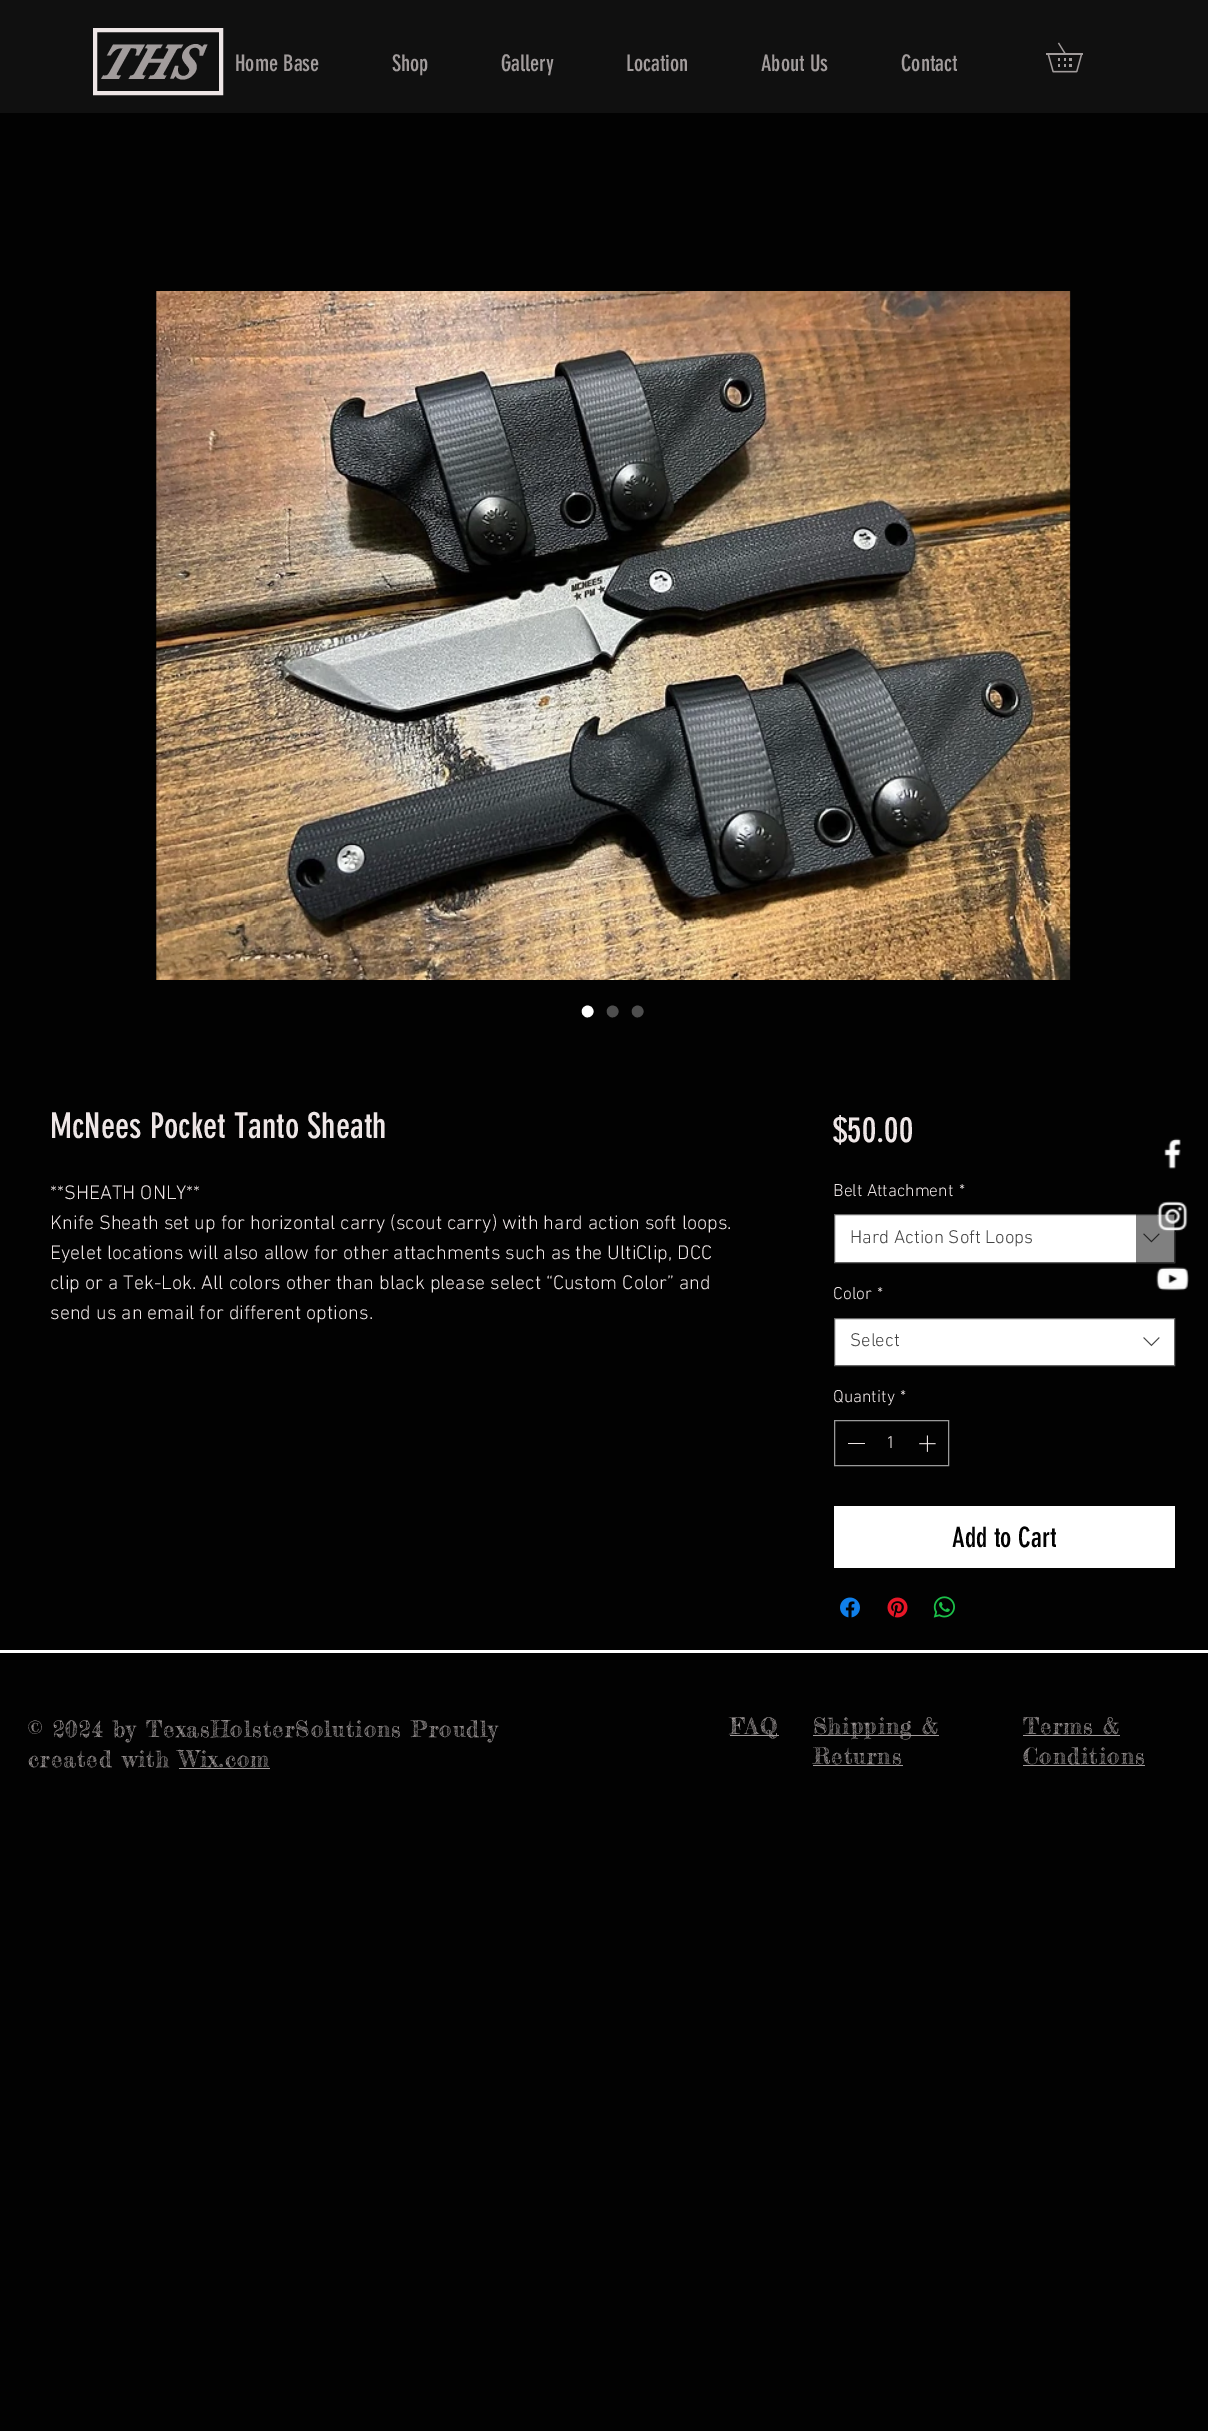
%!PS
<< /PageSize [1208 2431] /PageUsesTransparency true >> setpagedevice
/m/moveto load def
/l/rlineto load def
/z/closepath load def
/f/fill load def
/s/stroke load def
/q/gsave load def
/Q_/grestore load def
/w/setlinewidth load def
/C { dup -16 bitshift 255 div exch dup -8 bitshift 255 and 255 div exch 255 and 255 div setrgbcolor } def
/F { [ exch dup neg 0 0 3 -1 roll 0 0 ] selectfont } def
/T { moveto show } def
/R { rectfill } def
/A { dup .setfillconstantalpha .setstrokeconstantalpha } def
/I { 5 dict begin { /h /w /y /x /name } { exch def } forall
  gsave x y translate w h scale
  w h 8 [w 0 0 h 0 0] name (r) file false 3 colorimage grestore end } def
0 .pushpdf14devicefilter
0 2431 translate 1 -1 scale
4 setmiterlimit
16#020202 C
0 0 1208 2431 R
16#101010 C
0 0 1208 113 R
16#EEE6E6 C
4 w
95 30 126 63 rectstroke
/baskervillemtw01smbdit-BoldItalic 50 F
16#A29C9C C
(THS) 96 79 T
/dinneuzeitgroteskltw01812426-Regular 22.5 F
(Home Base) 235 71 T
(Shop) 392 71 T
(Gallery) 501 71 T
(Location) 626 71 T
(About Us) 761 71 T
(Contact) 901 71 T
(1.rgb) 1046 42 37 31 I
(2.rgb) 156 291 915 689 I
/LiberationSans-Regular 44 F
16#FFFFFF C
(•) 580 1026 T
16#4E4E4E C
(•) 605 1026 T
(•) 630 1026 T
/dinneuzeitgroteskltw01812426-Regular 35 F
16#EEE6E6 C
(McNees Pocket Tanto Sheath) 50 1138 T
/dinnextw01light-Light 20 F
(**SHEATH ONLY**) 50 1199 T
(Knife Sheath set up for horizontal carry \(scout carry\) with hard action soft loops.) 50 1229 T
(Eyelet locations will also allow for other attachments such as the UltiClip, DCC) 50 1259 T
(clip or a Tek-Lok. All colors other than black please select “Custom Color” and) 50 1289 T
(send us an email for different options.) 50 1319 T
/dinneuzeitgroteskltw01812426-Regular 35 F
($50.00) 833 1142 T
/dinnextw01light-Light 17.5 F
(Belt Attachment) 833 1196 T
(*) 959 1196 T
16#FFFFFF C
834.5 1214.5 m 340 0 l 0 48 l -340 0 l z q f Q_
16#666666 C
1 w
s
/dinnextw01light-Light 18.75 F
16#444444 C
(Hard Action Soft Loops) 850 1243 T
(3.rgb) 1143 1233 17 10 I
/dinnextw01light-Light 17.5 F
16#EEE6E6 C
(Color) 833 1299 T
(*) 877 1299 T
16#FFFFFF C
834.5 1318.5 m 340 0 l 0 47 l -340 0 l z q f Q_
16#666666 C
s
/dinnextw01light-Light 18.75 F
16#444444 C
(Select) 850 1346 T
(4.rgb) 1143 1337 17 10 I
/dinnextw01light-Light 17.5 F
16#EEE6E6 C
(Quantity) 833 1402 T
(*) 900 1402 T
16#9A9A9A C
834.5 1420.5 114 45 rectstroke
16#EEE6E6 C
848 1443 17 1 R
(1) 886 1448 T
(5.rgb) 919 1435 17 17 I
16#FFFFFF C
834 1506 341 62 R
/dinneuzeitgroteskltw01812426-Regular 27.5 F
16#020202 C
(Add to Cart) 952 1547 T
(6.rgb) 840 1597 20 21 I
(7.rgb) 887 1597 21 21 I
(8.rgb) 933 1596 22 22 I
(9.rgb) 1164 1138 17 31 I
0.5 A
1136 1214 39 49 R
1 A
(10.rgb) 1157 1201 31 31 I
(11.rgb) 1156 1267 33 24 I
16#FFFFFF C
0 1650 1208 3 R
/FrederickatheGreat-Regular 22.5 F
16#A29C9C C
28 1737 m 1.1 0 (© 2024 by TexasHolsterSolutions Proudly) ashow
28 1767 m 1.1 0 (created with Wix.com) ashow
179 1768 91 1 R
730 1735 49 1 R
730 1734 m 1.1 0 (FAQ) ashow
813 1735 126 1 R
813 1734 m 1.1 0 (Shipping &) ashow
813 1764 m 1.1 0 (Returns) ashow
813 1765 90 1 R
1023 1734 m 1.1 0 (Terms &) ashow
1023 1735 97 1 R
1023 1764 m 1.1 0 (Conditions) ashow
1023 1765 122 1 R
.poppdf14devicefilter showpage
